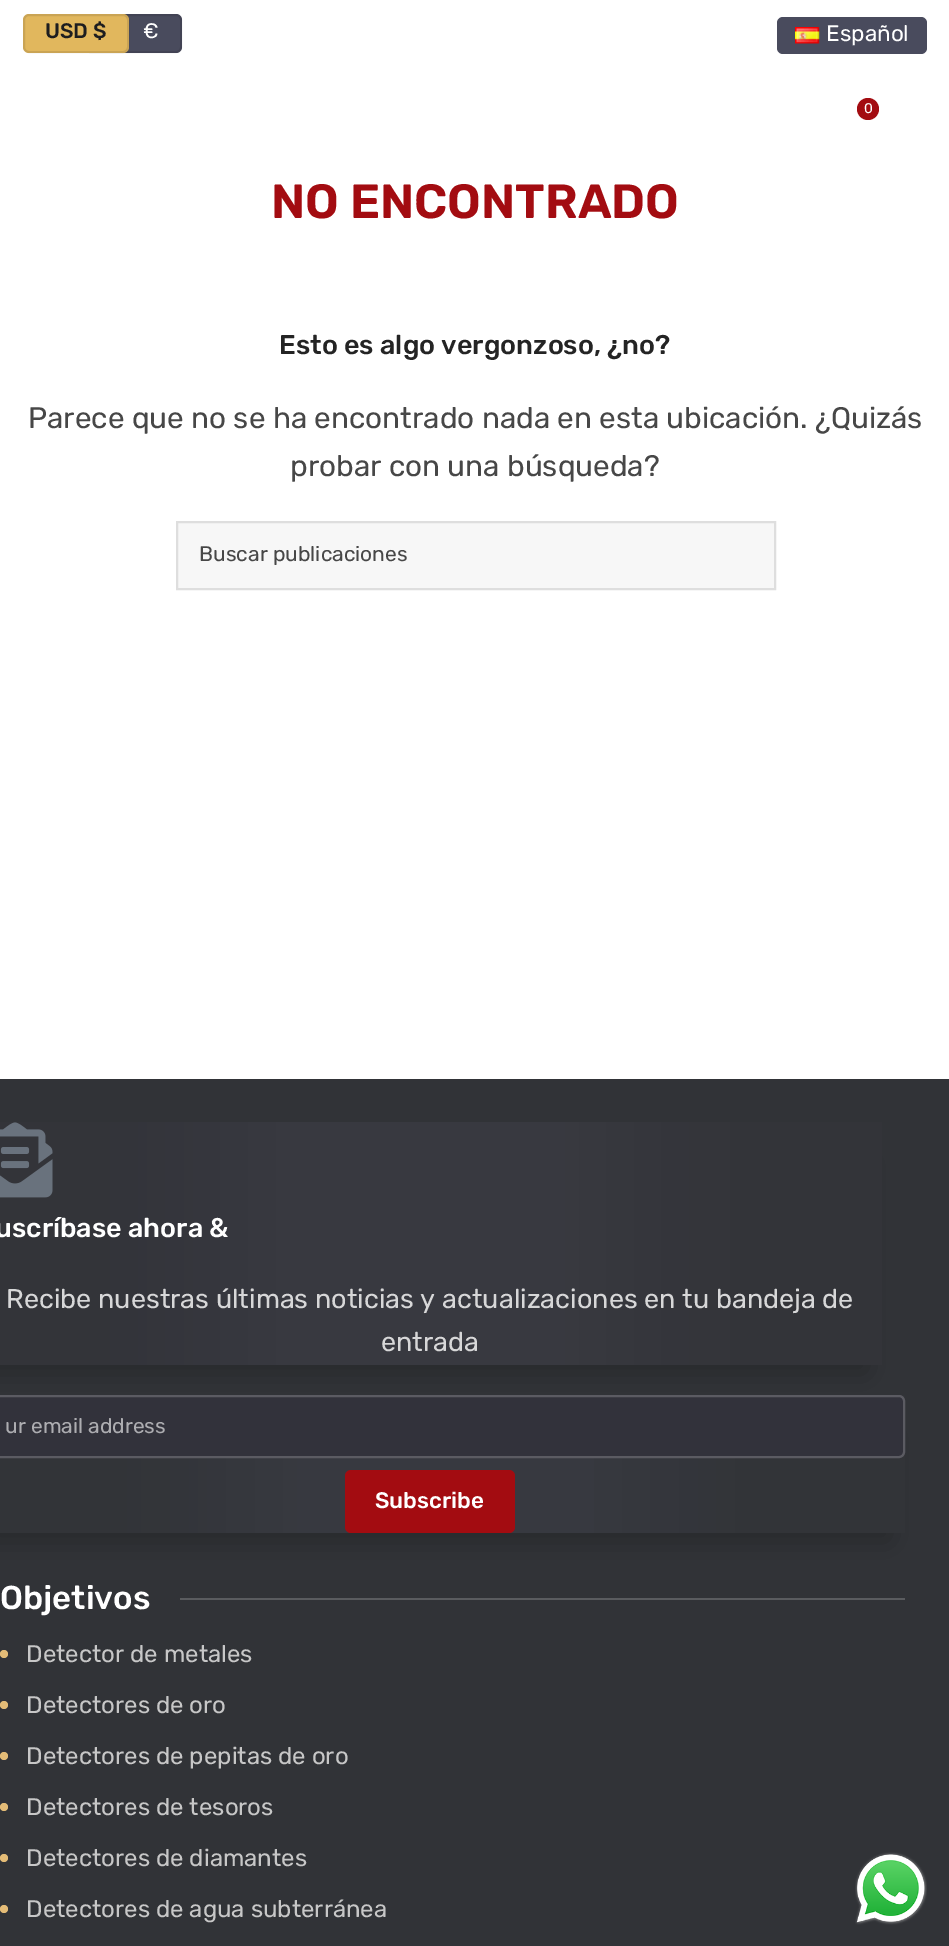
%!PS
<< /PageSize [949 1946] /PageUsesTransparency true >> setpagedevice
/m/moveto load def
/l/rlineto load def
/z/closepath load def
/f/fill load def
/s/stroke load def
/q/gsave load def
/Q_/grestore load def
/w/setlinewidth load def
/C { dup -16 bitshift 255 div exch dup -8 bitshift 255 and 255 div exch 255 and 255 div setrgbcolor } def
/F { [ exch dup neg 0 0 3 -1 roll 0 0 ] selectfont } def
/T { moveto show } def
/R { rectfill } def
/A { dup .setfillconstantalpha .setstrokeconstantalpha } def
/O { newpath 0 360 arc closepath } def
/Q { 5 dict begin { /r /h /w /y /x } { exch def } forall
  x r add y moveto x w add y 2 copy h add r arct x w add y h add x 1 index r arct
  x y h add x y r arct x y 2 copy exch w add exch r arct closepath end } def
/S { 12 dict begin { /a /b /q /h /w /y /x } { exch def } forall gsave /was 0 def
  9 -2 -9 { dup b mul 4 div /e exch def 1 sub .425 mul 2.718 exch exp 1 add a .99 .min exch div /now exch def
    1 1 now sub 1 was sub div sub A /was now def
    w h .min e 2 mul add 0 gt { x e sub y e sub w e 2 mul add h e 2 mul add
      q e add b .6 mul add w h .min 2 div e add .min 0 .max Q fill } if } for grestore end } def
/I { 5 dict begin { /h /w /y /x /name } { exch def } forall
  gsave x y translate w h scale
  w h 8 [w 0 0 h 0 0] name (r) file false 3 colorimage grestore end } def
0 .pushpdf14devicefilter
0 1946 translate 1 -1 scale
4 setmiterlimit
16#FFFFFF C
0 0 949 1946 R
16#494B5D C
84 14 98 39 6 Q f
0.1 A
16#000000 C
2 w
85 15 96 37 5 Q s
1 A
16#E1B75D C
23 14 106 39 6 Q f
0.1 A
16#000000 C
24 15 104 37 5 Q s
/Rubik-Medium 21 F
1 A
16#1D1D1F C
(USD $) 45 38 T
/Rubik-Regular 21 F
16#FFFFFF C
(€) 143 38 T
16#494B5D C
777 17 150 37 6 Q f
(1.rgb) 795 27 25 17 I
/Rubik-Regular 22.5 F
16#FFFFFF C
(Español) 826 41 T
16#A30C11 C
868 109 11 O f
/Rubik-Regular 14 F
16#FFFFFF C
(0) 864 113 T
/Rubik-SemiBold 48 F
16#A30C11 C
(NO ENCONTRADO) 271 218 T
/Rubik-Medium 27 F
16#242424 C
(Esto es algo vergonzoso, ¿no?) 279 354 T
/Rubik-Regular 29.7 F
16#474747 C
(Parece que no se ha encontrado nada en esta ubicación. ¿Quizás) 28 428 T
(probar con una búsqueda?) 290 476 T
16#F7F7F7 C
177 522 m 598 0 l 0 67 l -598 0 l z q f Q_
16#DEDEDE C
s
/Rubik-Regular 21 F
16#474747 C
(Buscar publicaciones) 199 561 T
16#313337 C
0 1079 949 867 R
16#000000 C
-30 1160 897 213 0 15 .23 S
q 0 1122 m 882 0 l 0 243 l -882 0 l z clip newpath
<< /ShadingType 2 /ColorSpace /DeviceRGB /Coords [-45 1244 882 1244] /Extend [true true] /Function << /FunctionType 3 /Domain [0 1] /Functions [<< /FunctionType 2 /Domain [0 1] /C0 [.2 .204 .224] /C1 [.2 .204 .224] /N 1 >> << /FunctionType 2 /Domain [0 1] /C0 [.2 .204 .224] /C1 [.22 .224 .251] /N 1 >> << /FunctionType 2 /Domain [0 1] /C0 [.22 .224 .251] /C1 [.22 .224 .251] /N 1 >> << /FunctionType 2 /Domain [0 1] /C0 [.22 .224 .251] /C1 [.2 .204 .224] /N 1 >> << /FunctionType 2 /Domain [0 1] /C0 [.2 .204 .224] /C1 [.2 .204 .224] /N 1 >>] /Bounds [.15 .35 .65 .85] /Encode [0 1 0 1 0 1 0 1 0 1] >> >> shfill Q_
-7 1433 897 108 0 15 .23 S
q 0 1395 m 905 0 l 0 138 l -905 0 l z clip newpath
<< /ShadingType 2 /ColorSpace /DeviceRGB /Coords [-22 1464 905 1464] /Extend [true true] /Function << /FunctionType 3 /Domain [0 1] /Functions [<< /FunctionType 2 /Domain [0 1] /C0 [.196 .204 .22] /C1 [.196 .204 .22] /N 1 >> << /FunctionType 2 /Domain [0 1] /C0 [.196 .204 .22] /C1 [.216 .224 .251] /N 1 >> << /FunctionType 2 /Domain [0 1] /C0 [.216 .224 .251] /C1 [.216 .224 .251] /N 1 >> << /FunctionType 2 /Domain [0 1] /C0 [.216 .224 .251] /C1 [.196 .204 .22] /N 1 >> << /FunctionType 2 /Domain [0 1] /C0 [.196 .204 .22] /C1 [.196 .204 .22] /N 1 >>] /Bounds [.15 .35 .65 .85] /Encode [0 1 0 1 0 1 0 1 0 1] >> >> shfill Q_
(2.rgb) 0 1122 53 76 I
/Rubik-Medium 27 F
16#FFFFFF C
(uscríbase ahora &) -5 1237 T
/Rubik-Regular 27 F
16#D7D7D8 C
(Recibe nuestras últimas noticias y actualizaciones en tu bandeja de) 6 1308 T
(entrada) 381 1351 T
16#32323B C
-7 1396 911 61 5 Q q f Q_
16#5B5B62 C
s
/Rubik-Regular 21 F
16#ADADB1 C
(ur email address) 5 1433 T
16#A30C11 C
345 1470 170 63 6 Q f
/Rubik-Medium 22.5 F
16#FFFFFF C
(Subscribe) 375 1508 T
/Rubik-Medium 33 F
(Objetivos) 0 1609 T
16#5A5C5F C
180 1598 725 2 R
16#E4BC77 C
4 1654 4 O f
/Rubik-Regular 24 F
16#C7C7C7 C
(Detector de metales) 26 1662 T
16#E4BC77 C
4 1705 4 O f
16#C7C7C7 C
(Detectores de oro) 26 1713 T
16#E4BC77 C
4 1756 4 O f
16#C7C7C7 C
(Detectores de pepitas de oro) 26 1764 T
16#E4BC77 C
4 1807 4 O f
16#C7C7C7 C
(Detectores de tesoros) 26 1815 T
16#E4BC77 C
4 1858 4 O f
16#C7C7C7 C
(Detectores de diamantes) 26 1866 T
16#E4BC77 C
4 1909 4 O f
16#C7C7C7 C
(Detectores de agua subterránea) 26 1917 T
(3.rgb) 855 1852 72 73 I
.poppdf14devicefilter showpage
